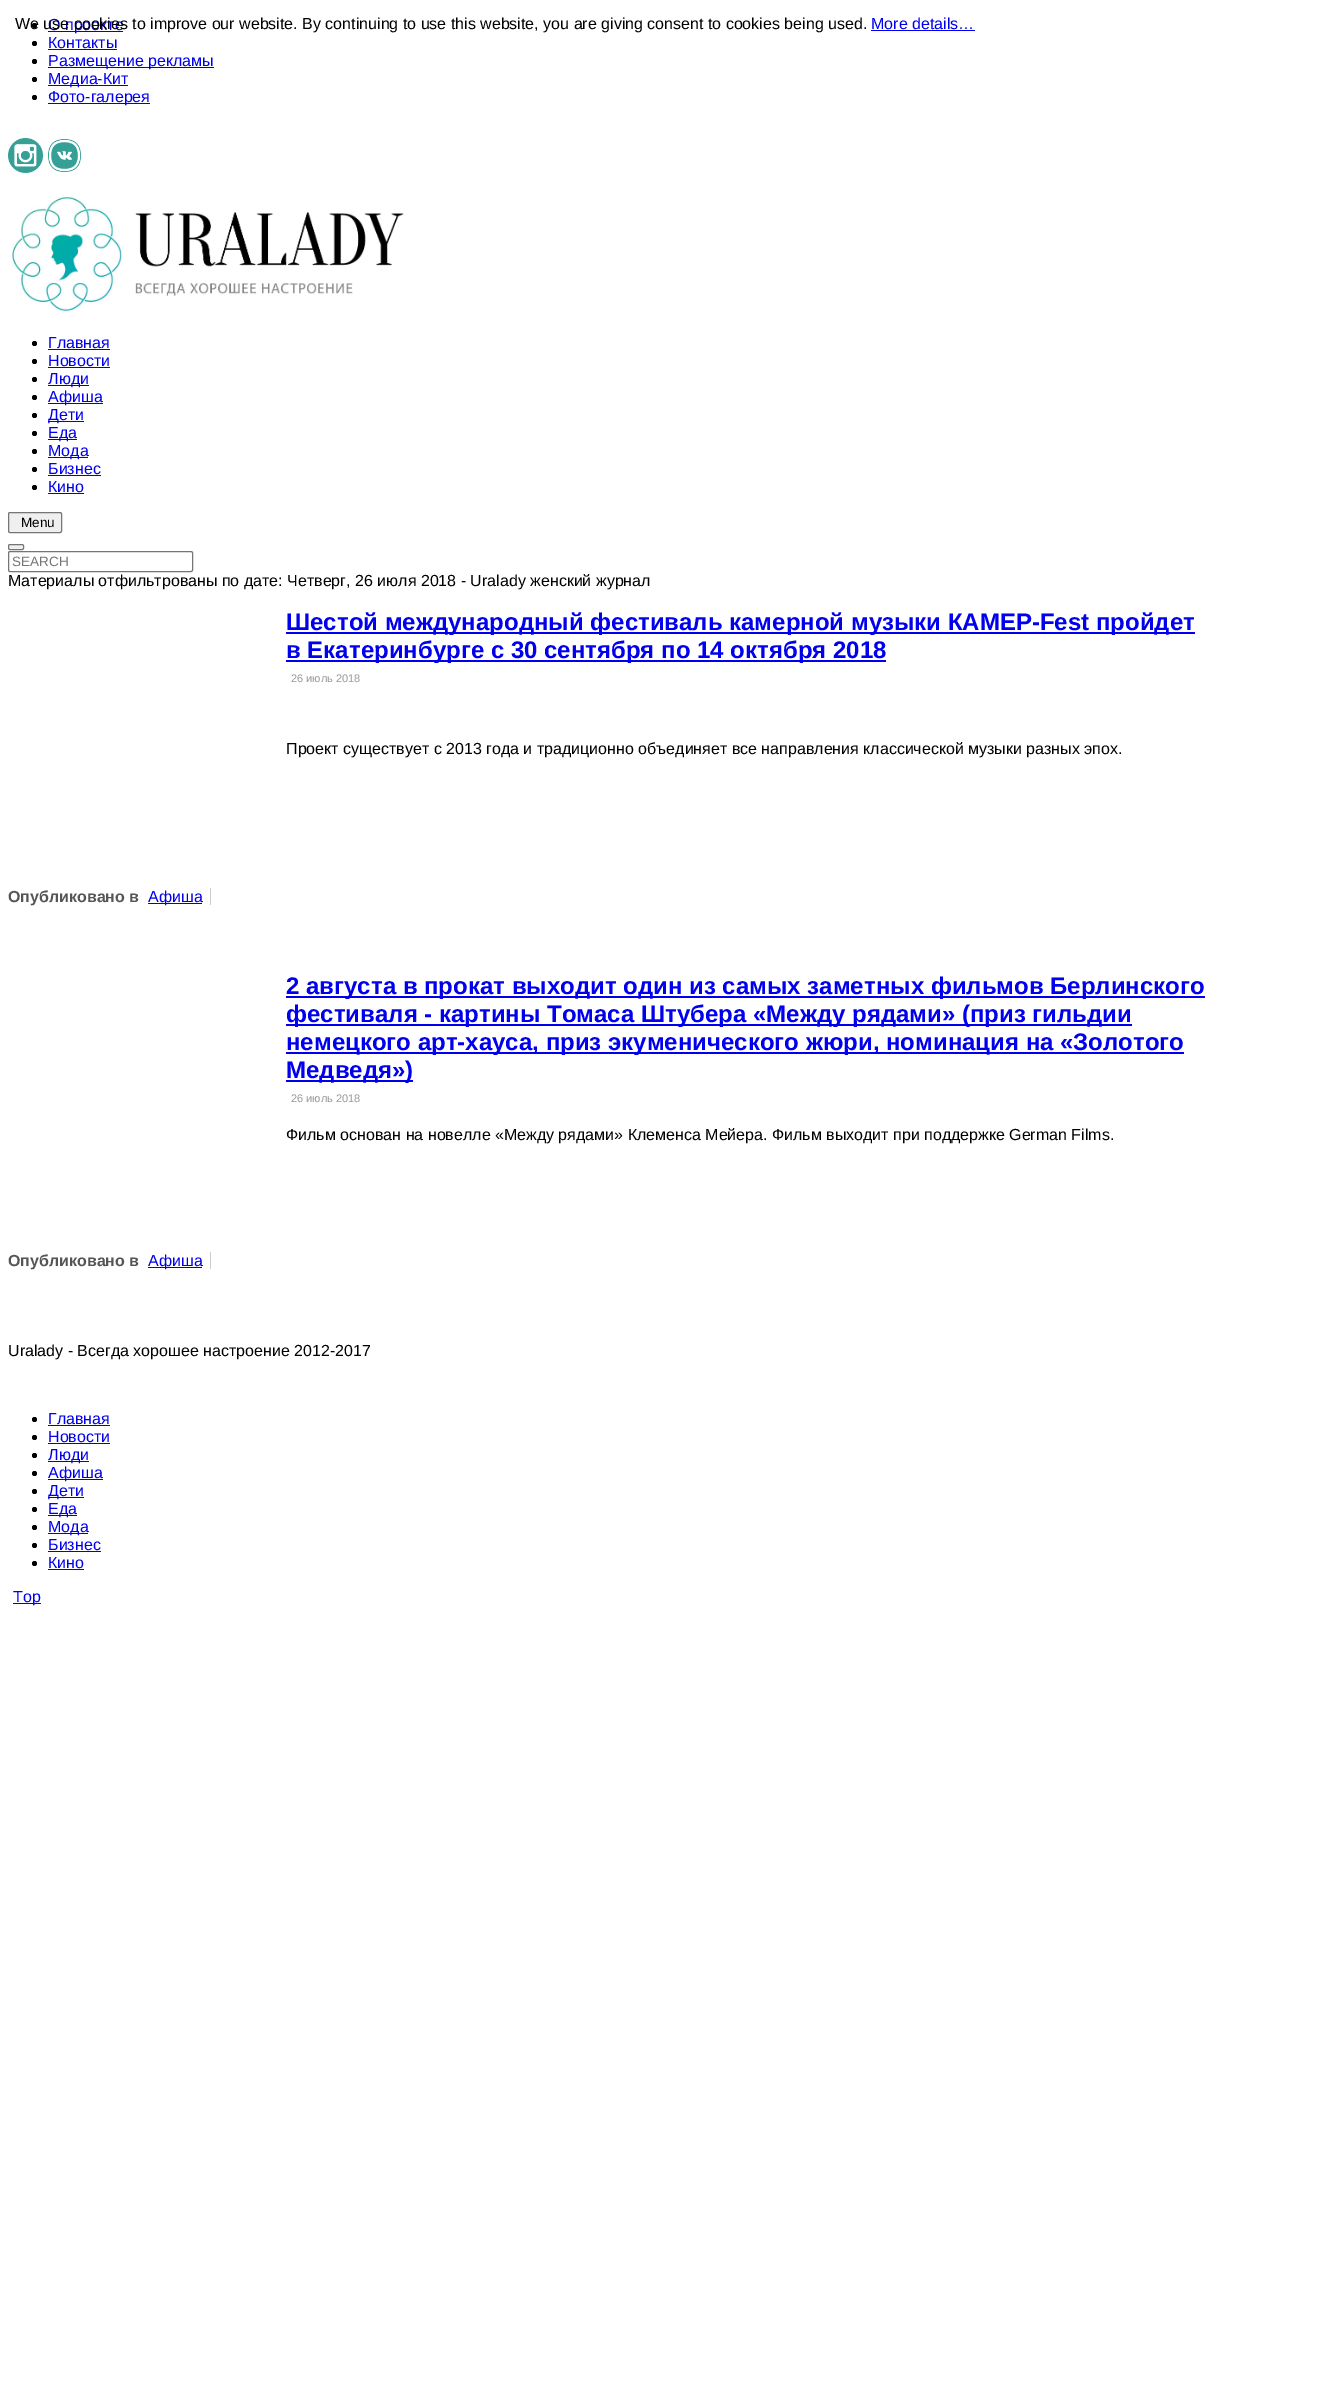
%!PS
<< /PageSize [1336 2399] >> setpagedevice
/f/fill load def
/s/stroke load def
/q/gsave load def
/Q_/grestore load def
/C { dup -16 bitshift 255 div exch dup -8 bitshift 255 and 255 div exch 255 and 255 div setrgbcolor } def
/F { [ exch dup neg 0 0 3 -1 roll 0 0 ] selectfont } def
/T { moveto show } def
/R { rectfill } def
/O { newpath 0 360 arc closepath } def
/Q { 5 dict begin { /r /h /w /y /x } { exch def } forall
  x r add y moveto x w add y 2 copy h add r arct x w add y h add x 1 index r arct
  x y h add x y r arct x y 2 copy exch w add exch r arct closepath end } def
/I { 5 dict begin { /h /w /y /x /name } { exch def } forall
  gsave x y translate w h scale
  w h 8 [w 0 0 h 0 0] name (r) file false 3 colorimage grestore end } def
0 2399 translate 1 -1 scale
4 setmiterlimit
16#FFFFFF C
0 0 1336 2399 R
16#000000 C
34.5 25.5 2.5 O f
16#0000EE C
48 31 75 1 R
/LiberationSans-Regular 16 F
(О проекте) 48 30 T
16#000000 C
(We use cookies to improve our website. By continuing to use this website, you are giving consent to cookies being used.) 15 29 T
16#0000EE C
(More details…) 871 29 T
871 30 104 1 R
16#000000 C
34.5 43.5 2.5 O f
16#0000EE C
(Контакты) 48 48 T
48 49 69 1 R
16#000000 C
34.5 61.5 2.5 O f
16#0000EE C
48 67 166 1 R
(Размещение рекламы) 48 66 T
16#000000 C
34.5 79.5 2.5 O f
16#0000EE C
48 85 80 1 R
(Медиа-Кит) 48 84 T
16#000000 C
34.5 97.5 2.5 O f
16#0000EE C
48 103 102 1 R
(Фото-галерея) 48 102 T
(1.rgb) 8 138 35 35 I
(2.rgb) 48 139 33 33 I
(3.rgb) 11 196 393 116 I
16#000000 C
34.5 343.5 2.5 O f
16#0000EE C
(Главная) 48 348 T
48 349 62 1 R
16#000000 C
34.5 361.5 2.5 O f
16#0000EE C
(Новости) 48 366 T
48 367 62 1 R
16#000000 C
34.5 379.5 2.5 O f
16#0000EE C
48 385 41 1 R
(Люди) 48 384 T
16#000000 C
34.5 397.5 2.5 O f
16#0000EE C
48 403 55 1 R
(Афиша) 48 402 T
16#000000 C
34.5 415.5 2.5 O f
16#0000EE C
48 421 36 1 R
(Дети) 48 420 T
16#000000 C
34.5 433.5 2.5 O f
16#0000EE C
48 439 29 1 R
(Еда) 48 438 T
16#000000 C
34.5 451.5 2.5 O f
16#0000EE C
48 457 40 1 R
(Мода) 48 456 T
16#000000 C
34.5 469.5 2.5 O f
16#0000EE C
(Бизнес) 48 474 T
48 475 53 1 R
16#000000 C
34.5 487.5 2.5 O f
16#0000EE C
(Кино) 48 492 T
48 493 36 1 R
16#EFEFEF C
8.5 512.5 53 20 1.5 Q q f Q_
16#767676 C
s
/LiberationSans-Regular 13.5 F
16#000000 C
(Menu) 21 527 T
16#EFEFEF C
8.5 544.5 15 5 1.5 Q q f Q_
16#767676 C
s
8.5 551.5 184 20 1.5 Q s
16#757575 C
(SEARCH) 12 566 T
/LiberationSans-Regular 16 F
16#000000 C
(Материалы отфильтрованы по дате: Четверг, 26 июля 2018 - Uralady женский журнал) 8 586 T
16#0000EE C
286 632 909 2 R
/LiberationSans-Bold 24 F
(Шестой международный фестиваль камерной музыки КАМЕР-Fest пройдет) 286 630 T
286 660 600 2 R
(в Екатеринбурге с 30 сентября по 14 октября 2018) 286 658 T
/LiberationSans-Regular 11 F
16#999999 C
(26 июль 2018) 291 682 T
/LiberationSans-Regular 16 F
16#000000 C
(Проект существует с 2013 года и традиционно объединяет все направления классической музыки разных эпох.) 286 754 T
/LiberationSans-Bold 16 F
16#555555 C
(Опубликовано в) 8 902 T
16#0000EE C
148 903 54 1 R
/LiberationSans-Regular 16 F
(Афиша) 148 902 T
16#CCCCCC C
210 888 1 17 R
16#0000EE C
286 996 919 2 R
/LiberationSans-Bold 24 F
(2 августа в прокат выходит один из самых заметных фильмов Берлинского) 286 994 T
286 1024 846 2 R
(фестиваля - картины Томаса Штубера «Между рядами» \(приз гильдии) 286 1022 T
286 1052 898 2 R
(немецкого арт-хауса, приз экуменического жюри, номинация на «Золотого) 286 1050 T
286 1080 127 2 R
(Медведя»\)) 286 1078 T
/LiberationSans-Regular 11 F
16#999999 C
(26 июль 2018) 291 1102 T
/LiberationSans-Regular 16 F
16#000000 C
(Фильм основан на новелле «Между рядами» Клеменса Мейера. Фильм выходит при поддержке German Films.) 286 1140 T
/LiberationSans-Bold 16 F
16#555555 C
(Опубликовано в) 8 1266 T
16#0000EE C
148 1267 54 1 R
/LiberationSans-Regular 16 F
(Афиша) 148 1266 T
16#CCCCCC C
210 1252 1 17 R
16#000000 C
(Uralady - Всегда хорошее настроение 2012-2017) 8 1356 T
34.5 1419.5 2.5 O f
16#0000EE C
(Главная) 48 1424 T
48 1425 62 1 R
16#000000 C
34.5 1437.5 2.5 O f
16#0000EE C
(Новости) 48 1442 T
48 1443 62 1 R
16#000000 C
34.5 1455.5 2.5 O f
16#0000EE C
48 1461 41 1 R
(Люди) 48 1460 T
16#000000 C
34.5 1473.5 2.5 O f
16#0000EE C
48 1479 55 1 R
(Афиша) 48 1478 T
16#000000 C
34.5 1491.5 2.5 O f
16#0000EE C
48 1497 36 1 R
(Дети) 48 1496 T
16#000000 C
34.5 1509.5 2.5 O f
16#0000EE C
48 1515 29 1 R
(Еда) 48 1514 T
16#000000 C
34.5 1527.5 2.5 O f
16#0000EE C
48 1533 40 1 R
(Мода) 48 1532 T
16#000000 C
34.5 1545.5 2.5 O f
16#0000EE C
(Бизнес) 48 1550 T
48 1551 53 1 R
16#000000 C
34.5 1563.5 2.5 O f
16#0000EE C
(Кино) 48 1568 T
48 1569 36 1 R
13 1603 28 1 R
(Top) 13 1602 T
showpage
